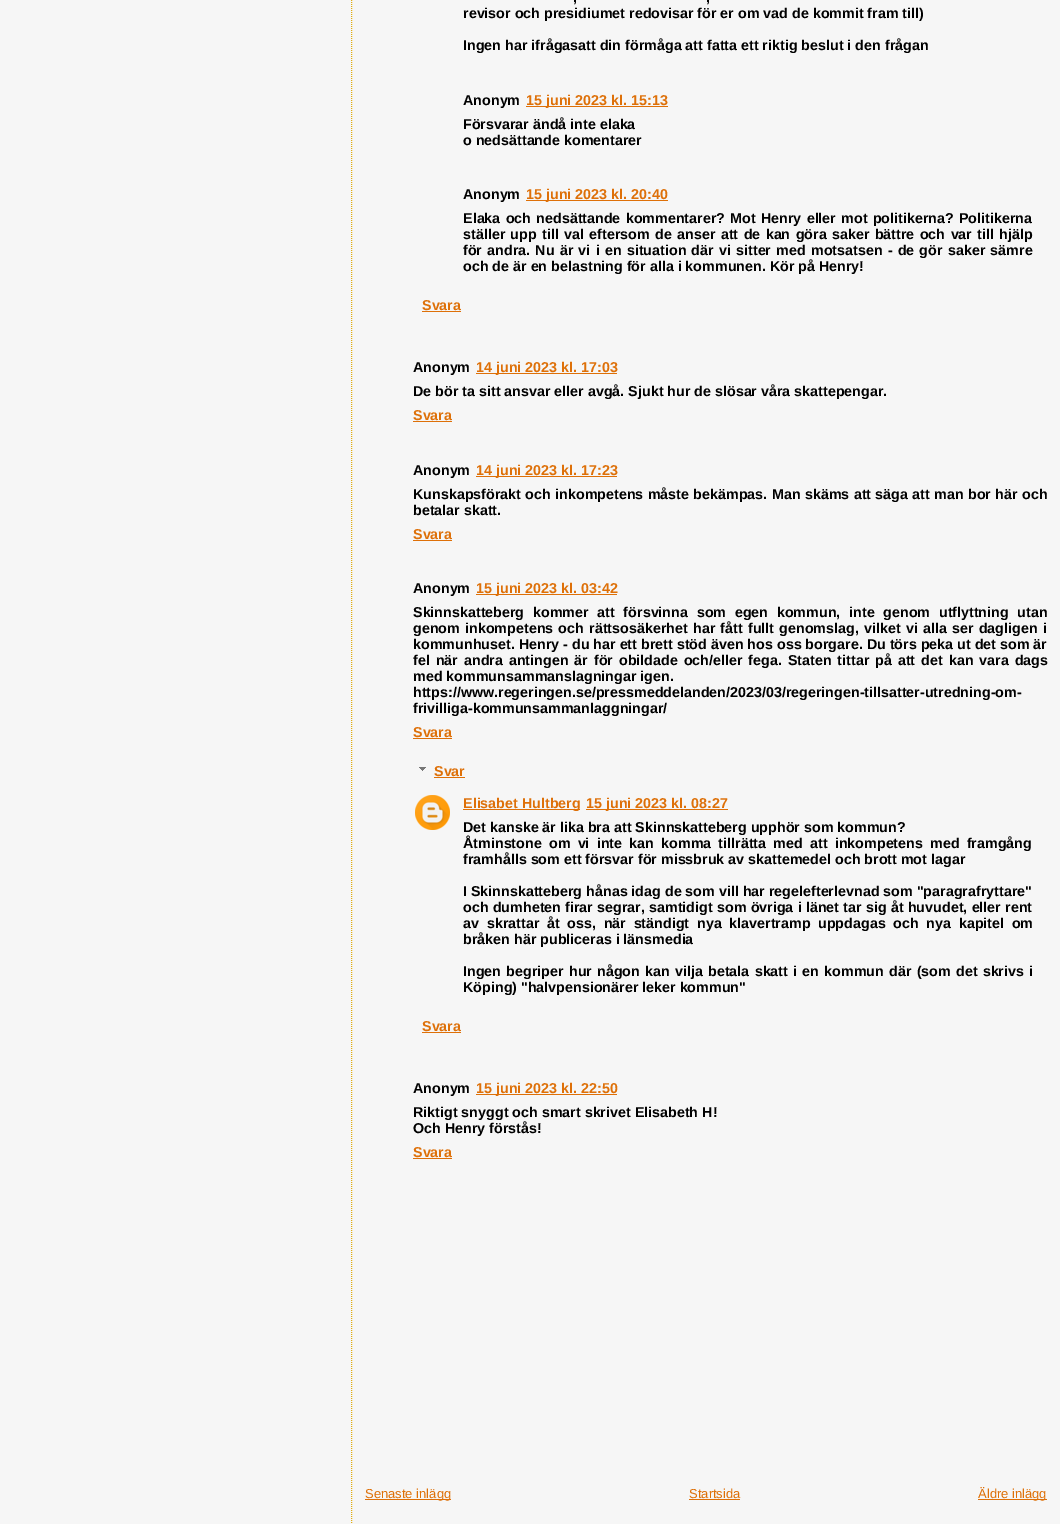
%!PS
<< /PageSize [1060 1524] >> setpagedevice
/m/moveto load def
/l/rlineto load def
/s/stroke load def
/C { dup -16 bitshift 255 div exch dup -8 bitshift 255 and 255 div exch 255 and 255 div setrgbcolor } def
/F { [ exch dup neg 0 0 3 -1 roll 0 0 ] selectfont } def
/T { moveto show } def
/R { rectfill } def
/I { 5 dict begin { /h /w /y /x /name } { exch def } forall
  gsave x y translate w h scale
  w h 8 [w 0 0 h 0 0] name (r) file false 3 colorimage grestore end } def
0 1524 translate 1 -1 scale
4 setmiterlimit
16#F6F6F6 C
0 0 1060 1524 R
16#E0AD12 C
[1 1] 0 setdash
351.5 -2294 m 0 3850 l s
/LiberationSans-Bold 14.3 F
16#000000 C
573 2 m 1 0 32 (,) widthshow
706 2 m 1 0 32 (,) widthshow
(revisor och presidiumet redovisar för er om vad de kommit fram till\)) 463 18 T
(Ingen har ifrågasatt din förmåga att fatta ett riktig beslut i den frågan) 463 50 T
(Anonym) 463 105 T
16#DE7008 C
526 106 142 1 R
(15 juni 2023 kl. 15:13) 526 105 T
16#000000 C
(Försvarar ändå inte elaka) 463 129 T
(o nedsättande komentarer) 463 145 T
(Anonym) 463 199 T
16#DE7008 C
526 200 142 1 R
(15 juni 2023 kl. 20:40) 526 199 T
16#000000 C
463 223 m 1.25 0 32 (Elaka och nedsättande kommentarer? Mot Henry eller mot politikerna? Politikerna) widthshow
463 239 m 1.4 0 32 (ställer upp till val eftersom de anser att de kan göra saker bättre och var till hjälp) widthshow
463 255 m 1.25 0 32 (för andra. Nu är vi i en situation där vi sitter med motsatsen - de gör saker sämre) widthshow
(och de är en belastning för alla i kommunen. Kör på Henry!) 463 271 T
16#DE7008 C
(Svara) 422 310 T
422 311 39 1 R
16#000000 C
(Anonym) 413 372 T
16#DE7008 C
476 373 141 1 R
(14 juni 2023 kl. 17:03) 476 372 T
16#000000 C
(De bör ta sitt ansvar eller avgå. Sjukt hur de slösar våra skattepengar.) 413 396 T
16#DE7008 C
(Svara) 413 420 T
413 421 39 1 R
16#000000 C
(Anonym) 413 475 T
16#DE7008 C
476 476 141 1 R
(14 juni 2023 kl. 17:23) 476 475 T
16#000000 C
413 499 m .4 0 32 (Kunskapsförakt och inkompetens måste bekämpas. Man skäms att säga att man bor här och) widthshow
(betalar skatt.) 413 515 T
16#DE7008 C
(Svara) 413 539 T
413 540 39 1 R
16#000000 C
(Anonym) 413 593 T
16#DE7008 C
476 594 141 1 R
(15 juni 2023 kl. 03:42) 476 593 T
16#000000 C
413 617 m 4.75 0 32 (Skinnskatteberg kommer att försvinna som egen kommun, inte genom utflyttning utan) widthshow
413 633 m 1.25 0 32 (genom inkompetens och rättsosäkerhet har fått fullt genomslag, vilket vi alla ser dagligen i) widthshow
(kommunhuset. Henry - du har ett brett stöd även hos oss borgare. Du törs peka ut det som är) 413 649 T
413 665 m 2 0 32 (fel när andra antingen är för obildade och/eller fega. Staten tittar på att det kan vara dags) widthshow
(med kommunsammanslagningar igen.) 413 681 T
(https://www.regeringen.se/pressmeddelanden/2023/03/regeringen-tillsatter-utredning-om-) 413 697 T
(frivilliga-kommunsammanlaggningar/) 413 713 T
16#DE7008 C
(Svara) 413 737 T
413 738 39 1 R
(1.rgb) 419 767 7 4 I
(Svar) 434 776 T
434 777 31 1 R
(2.rgb) 415 795 35 35 I
463 809 117 1 R
(Elisabet Hultberg) 463 808 T
586 809 142 1 R
(15 juni 2023 kl. 08:27) 586 808 T
16#000000 C
(Det kanske är lika bra att Skinnskatteberg upphör som kommun?) 463 832 T
463 848 m 3.25 0 32 (Åtminstone om vi inte kan komma tillrätta med att inkompetens med framgång) widthshow
(framhålls som ett försvar för missbruk av skattemedel och brott mot lagar) 463 864 T
(I Skinnskatteberg hånas idag de som vill har regelefterlevnad som "paragrafryttare") 463 896 T
463 912 m .25 0 32 (och dumheten firar segrar, samtidigt som övriga i länet tar sig åt huvudet, eller rent) widthshow
463 928 m 3.75 0 32 (av skrattar åt oss, när ständigt nya klavertramp uppdagas och nya kapitel om) widthshow
(bråken här publiceras i länsmedia) 463 944 T
463 976 m 1.25 0 32 (Ingen begriper hur någon kan vilja betala skatt i en kommun där \(som det skrivs i) widthshow
(Köping\) "halvpensionärer leker kommun") 463 992 T
16#DE7008 C
(Svara) 422 1031 T
422 1032 39 1 R
16#000000 C
(Anonym) 413 1093 T
16#DE7008 C
476 1094 141 1 R
(15 juni 2023 kl. 22:50) 476 1093 T
16#000000 C
(Riktigt snyggt och smart skrivet Elisabeth H!) 413 1117 T
(Och Henry förstås!) 413 1133 T
16#DE7008 C
(Svara) 413 1157 T
413 1158 39 1 R
365 1499 86 1 R
/LiberationSans-Regular 13 F
(Senaste inlägg) 365 1498 T
(Startsida) 689 1498 T
689 1499 51 1 R
978 1499 69 1 R
(Äldre inlägg) 978 1498 T
showpage
